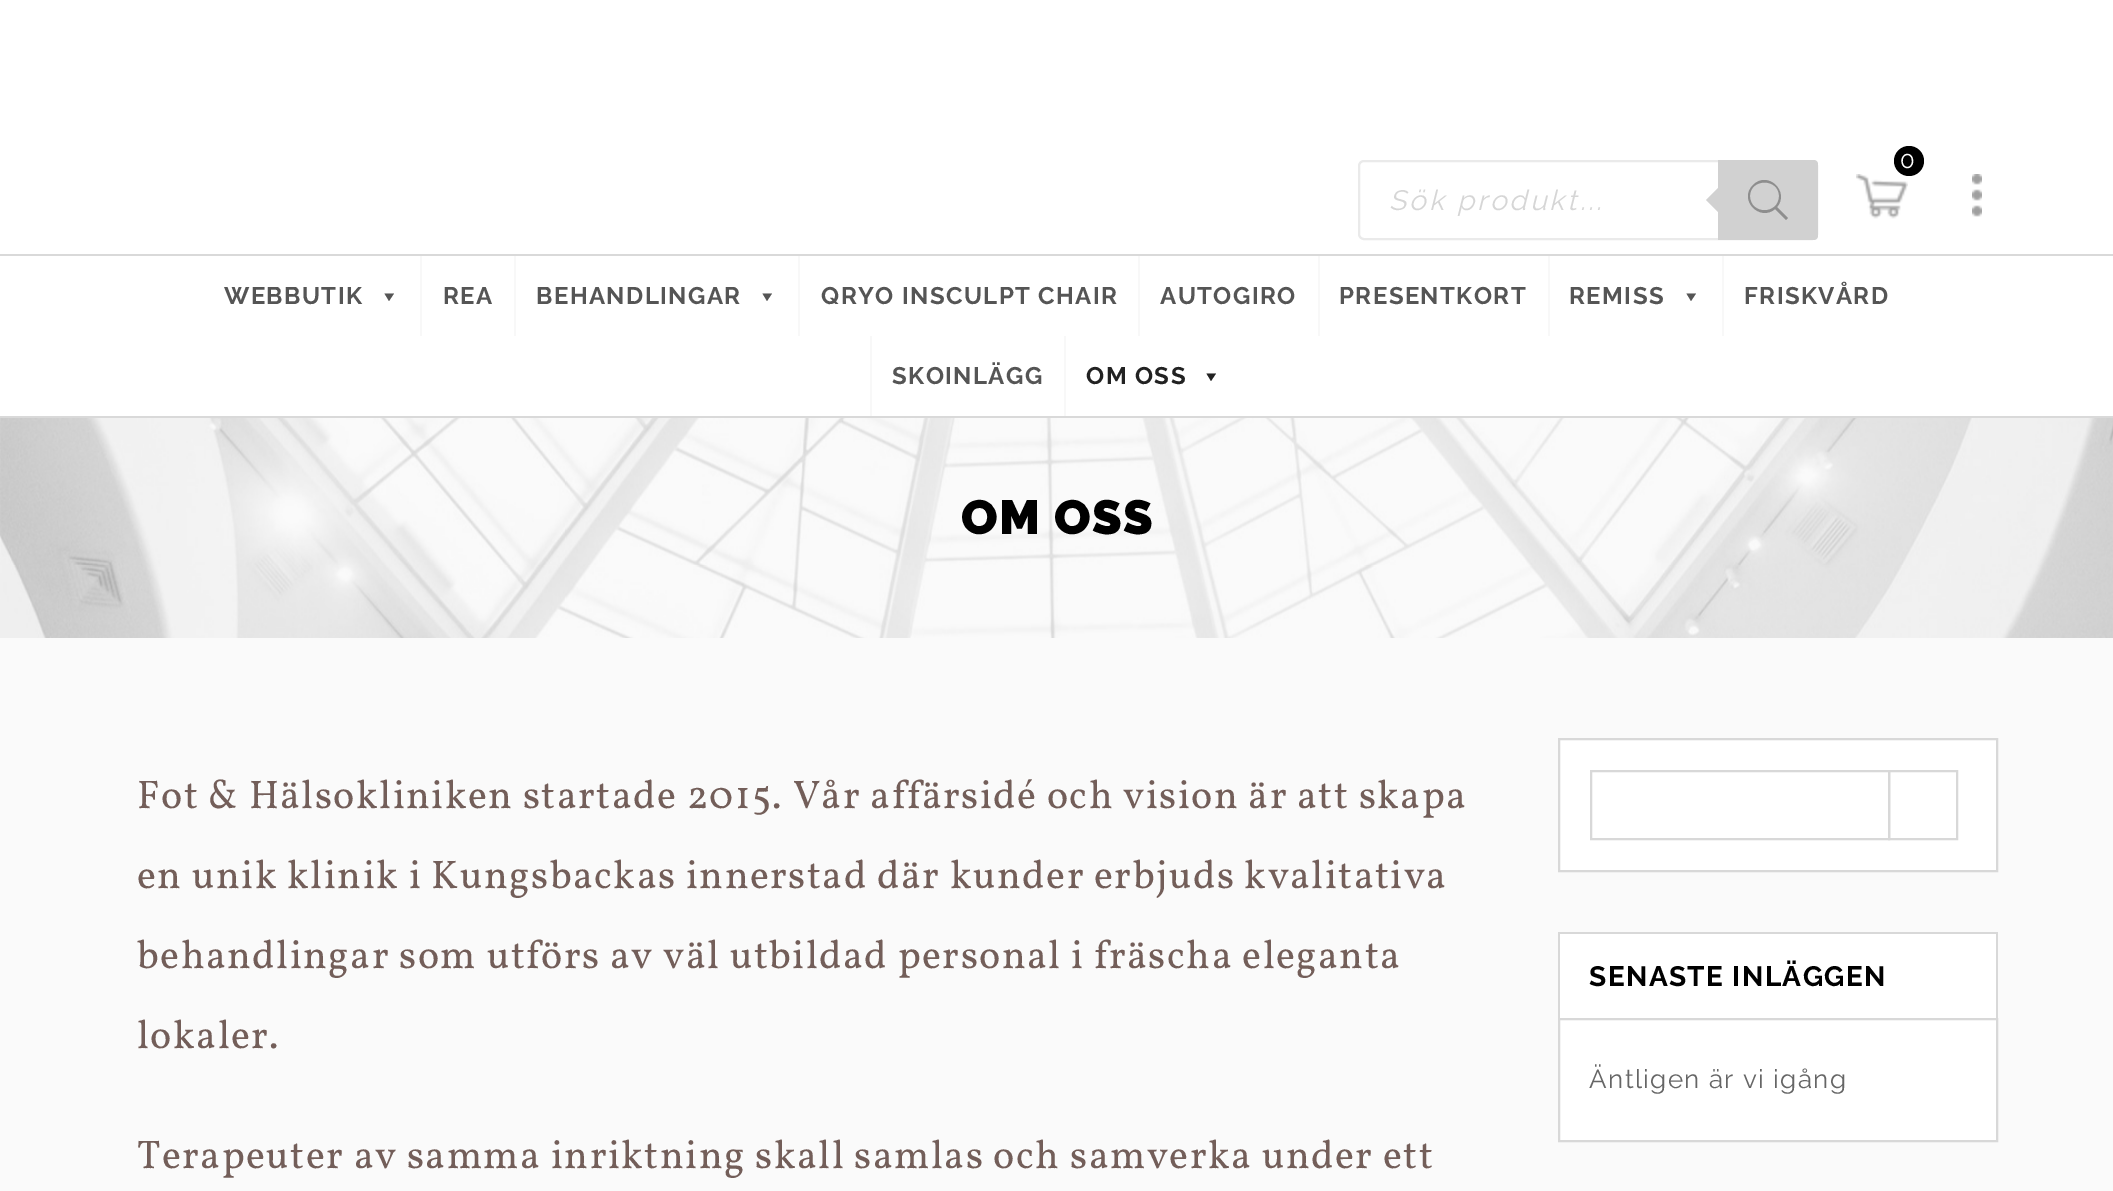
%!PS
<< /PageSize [2113 1191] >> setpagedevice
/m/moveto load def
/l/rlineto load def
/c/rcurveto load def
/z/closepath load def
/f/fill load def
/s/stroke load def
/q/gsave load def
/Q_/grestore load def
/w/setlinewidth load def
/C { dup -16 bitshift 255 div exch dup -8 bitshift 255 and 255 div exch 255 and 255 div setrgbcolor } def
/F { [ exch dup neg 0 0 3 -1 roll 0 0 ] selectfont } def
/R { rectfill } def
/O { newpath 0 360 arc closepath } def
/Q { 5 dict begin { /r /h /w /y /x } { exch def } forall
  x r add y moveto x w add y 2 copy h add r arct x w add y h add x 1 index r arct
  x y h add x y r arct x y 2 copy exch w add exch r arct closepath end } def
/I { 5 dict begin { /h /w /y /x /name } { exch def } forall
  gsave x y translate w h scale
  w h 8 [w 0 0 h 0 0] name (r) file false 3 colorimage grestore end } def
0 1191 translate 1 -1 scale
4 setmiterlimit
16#FAFAFA C
0 0 2113 1191 R
16#FFFFFF C
0 0 2113 254 R
(1.rgb) 1856 174 52 45 I
16#000000 C
1909 161 15 O f
/Raleway-Thin 24 F
16#FFFFFF C
1900 168 m 1.4 0 (0) ashow
16#EAEAEA C
2 w
1359 161 458 78 5 Q s
/Raleway-ThinItalic 28 F
16#D6D6D6 C
1389 210 m 3 0 (Sök produkt...) ashow
16#D1D1D1 C
1718 160 m 96 0 l 2 0 4 2 4 4 c 0 72 l 0 2 -2 4 -4 4 c -96 0 l z f
1722 184 m 0 32 l -16 -16 l z f
16#8E8E8E C
1788 218 m -11 -11 l 13 -15 -9 -37 -24 -22 c -15 15 7 37 22 24 c 11 11 l z 1750 196 m 0 -18 29 -18 29 0 c 0 19 -29 19 -29 0 c z f
(2.rgb) 1972 174 10 43 I
16#FFFFFF C
0 256 2113 160 R
16#D9D9D9 C
0 254 2113 2 R
0 416 2113 2 R
/Raleway-Bold 24 F
16#555555 C
224 304 m 1.4 0 (WEBBUTIK) ashow
394 293.5 m -5 7.5 l -4.5 -7.5 l z f
16#F8F8F8 C
420 256 2 80 R
16#555555 C
443 304 m 1.4 0 (REA) ashow
16#F8F8F8 C
514 256 2 80 R
16#555555 C
536 304 m 1.4 0 (BEHANDLINGAR) ashow
772 293.5 m -5 7.5 l -4.5 -7.5 l z f
16#F8F8F8 C
798 256 2 80 R
16#555555 C
821 304 m 1.4 0 (QRYO INSCULPT CHAIR) ashow
16#F8F8F8 C
1138 256 2 80 R
16#555555 C
1160 304 m 1.4 0 (AUTOGIRO) ashow
16#F8F8F8 C
1318 256 2 80 R
16#555555 C
1339 304 m 1.4 0 (PRESENTKORT) ashow
16#F8F8F8 C
1548 256 2 80 R
16#555555 C
1569 304 m 1.4 0 (REMISS) ashow
1696 293.5 m -5 7.5 l -4.5 -7.5 l z f
16#F8F8F8 C
1722 256 2 80 R
16#555555 C
1744 304 m 1.4 0 (FRISKVÅRD) ashow
16#F8F8F8 C
870 336 2 80 R
16#555555 C
892 384 m 1.4 0 (SKOINLÄGG) ashow
16#F8F8F8 C
1064 336 2 80 R
16#222222 C
1086 384 m 1.4 0 (OM OSS) ashow
1216 373.5 m -5 7.5 l -4.5 -7.5 l z f
(3.rgb) 0 418 2113 220 I
/Raleway-Black 48 F
16#000000 C
961 534 m 1.4 0 (OM OSS) ashow
/Vollkorn-Regular 40 F
16#735E59 C
137 808 m -.1 0 32 1.4 0 (Fot & Hälsokliniken startade 2015. Vår affärsidé och vision är att skapa) awidthshow
137 888 m 1.4 0 (en unik klinik i Kungsbackas innerstad där kunder erbjuds kvalitativa) ashow
137 968 m 1.4 0 (behandlingar som utförs av väl utbildad personal i fräscha eleganta) ashow
137 1048 m 1.4 0 (lokaler.) ashow
137 1168 m 1.4 0 (Terapeuter av samma inriktning skall samlas och samverka under ett) ashow
16#FFFFFF C
1559 739 m 438 0 l 0 132 l -438 0 l z q f Q_
16#D8D8D8 C
s
1591 771 298 68 rectstroke
1889 771 68 68 rectstroke
16#FFFFFF C
1560 934 436 84 R
16#D8D8D8 C
1558 932 440 2 R
1996 932 2 86 R
1558 932 2 86 R
/Raleway-Bold 28 F
16#000000 C
1589 986 m 1.4 0 (SENASTE INLÄGGEN) ashow
16#FFFFFF C
1559 1019 m 438 0 l 0 122 l -438 0 l z q f Q_
16#D8D8D8 C
s
/Raleway-Thin 26 F
16#666666 C
1589 1088 m 1.4 0 (Äntligen är vi igång) ashow
showpage
